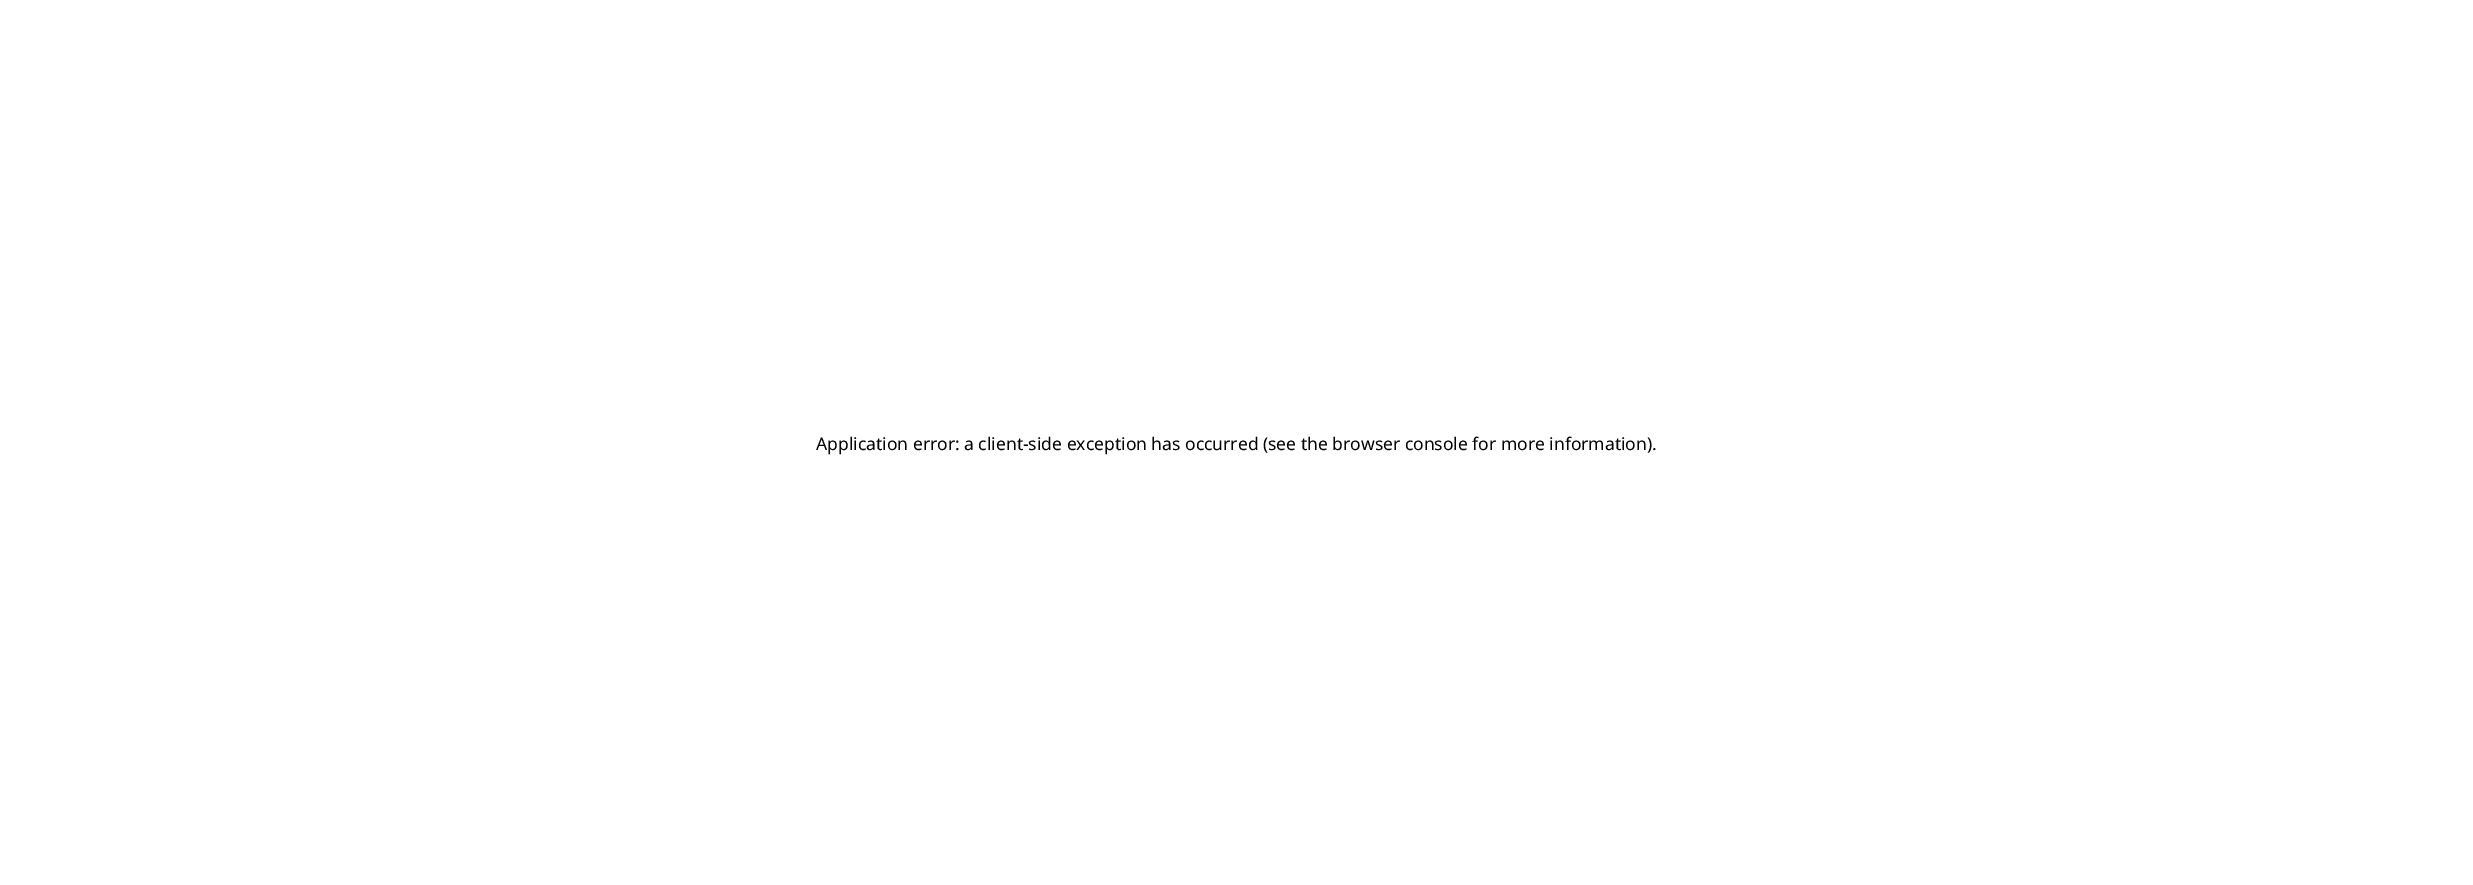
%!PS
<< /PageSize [2473 885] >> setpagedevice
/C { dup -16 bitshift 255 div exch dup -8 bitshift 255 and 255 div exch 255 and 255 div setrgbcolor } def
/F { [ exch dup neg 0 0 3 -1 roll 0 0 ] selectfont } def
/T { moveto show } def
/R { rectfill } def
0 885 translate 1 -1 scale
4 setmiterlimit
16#FFFFFF C
0 0 2473 885 R
/NotoSans-Regular 17.5 F
16#000000 C
(Application error: a client-side exception has occurred \(see the browser console for more information\).) 816 450 T
showpage
